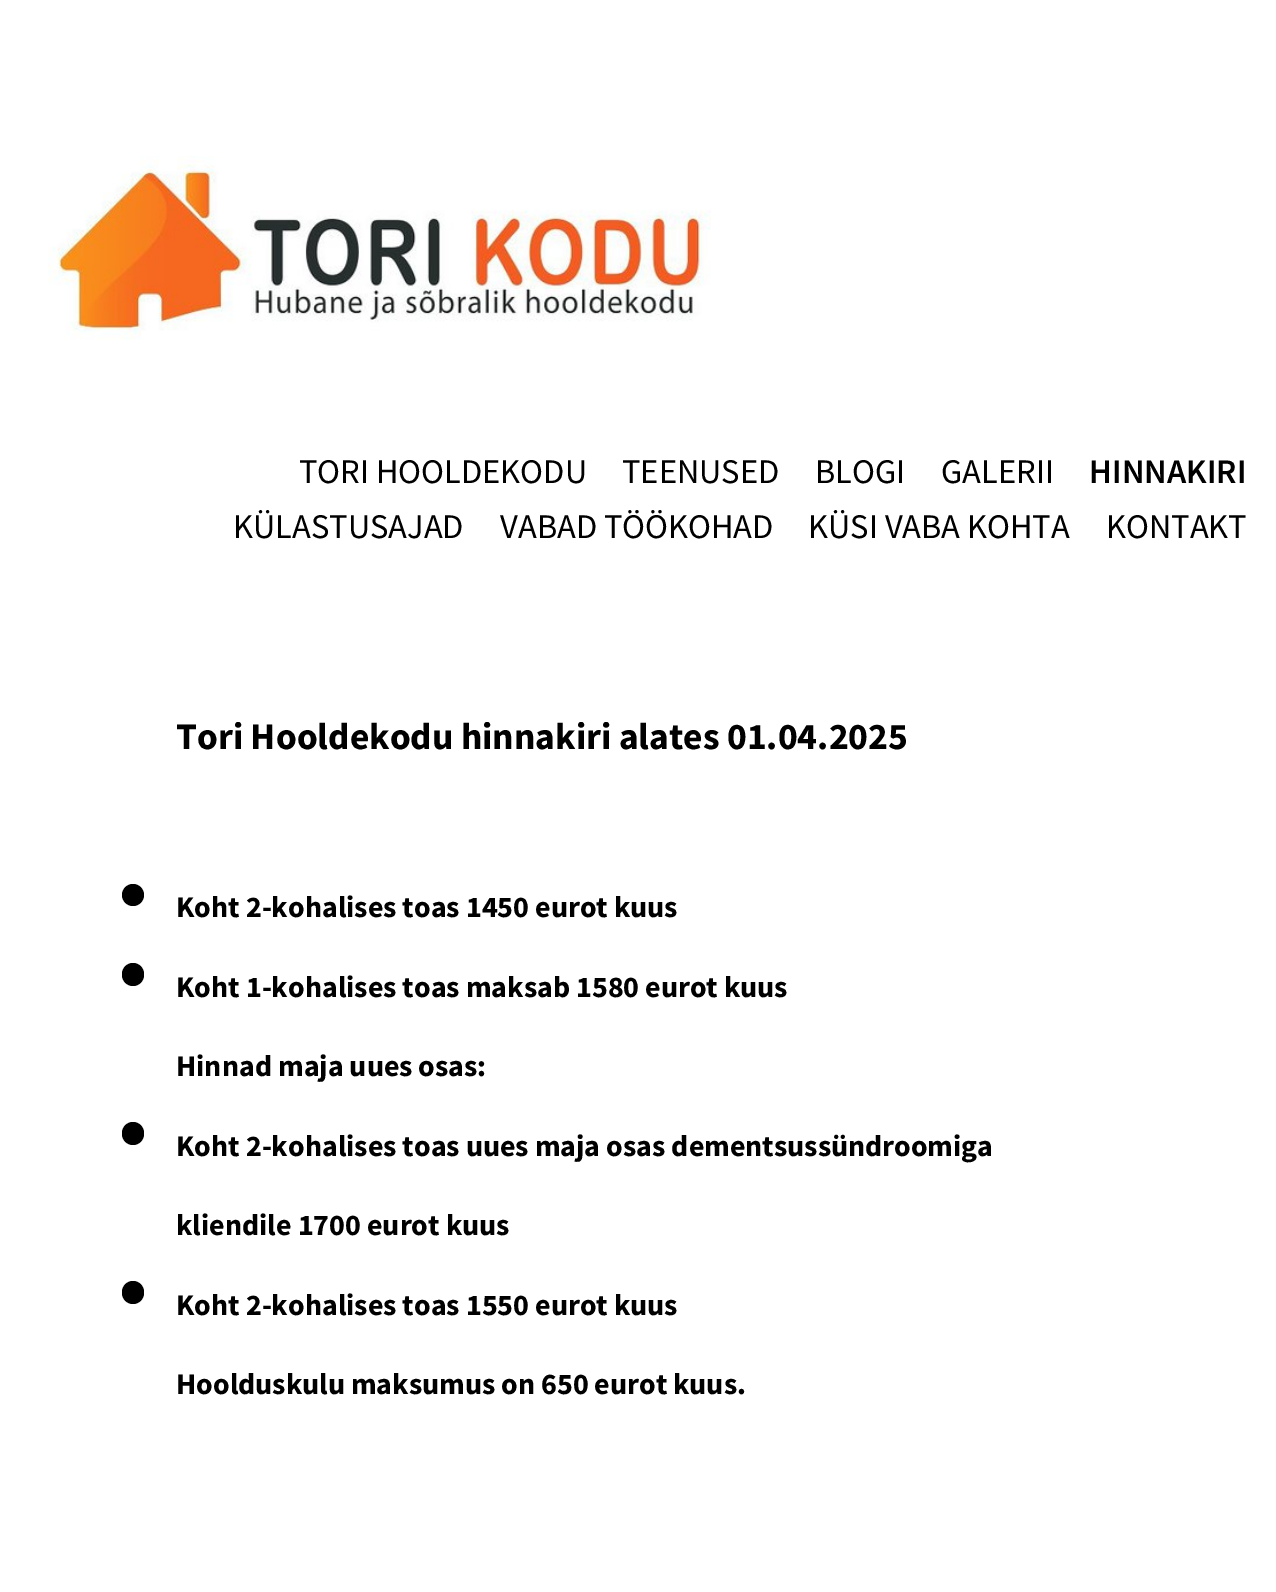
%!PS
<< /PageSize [1276 1592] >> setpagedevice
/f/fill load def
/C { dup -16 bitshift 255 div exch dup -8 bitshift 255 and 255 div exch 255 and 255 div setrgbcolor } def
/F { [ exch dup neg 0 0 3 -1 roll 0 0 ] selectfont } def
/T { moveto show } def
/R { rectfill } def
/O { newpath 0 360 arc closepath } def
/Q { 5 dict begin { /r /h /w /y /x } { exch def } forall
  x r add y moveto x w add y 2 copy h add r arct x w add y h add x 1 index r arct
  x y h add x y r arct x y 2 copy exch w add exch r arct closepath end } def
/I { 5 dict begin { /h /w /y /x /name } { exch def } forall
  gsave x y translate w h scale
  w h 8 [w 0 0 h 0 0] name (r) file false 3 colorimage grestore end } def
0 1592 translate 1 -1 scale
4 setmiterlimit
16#FFFFFF C
0 0 1276 1592 R
(1.rgb) 48 156 663 184 I
/SourceSansPro-Regular 34.5 F
16#000000 C
(TORI HOOLDEKODU) 299 483 T
(TEENUSED) 622 483 T
(BLOGI) 815 483 T
(GALERII) 941 483 T
/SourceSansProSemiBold-SemiBold 34.5 F
(HINNAKIRI) 1089 483 T
/SourceSansPro-Regular 34.5 F
(KÜLASTUSAJAD) 233 538 T
(VABAD TÖÖKOHAD) 500 538 T
(KÜSI VABA KOHTA) 808 538 T
(KONTAKT) 1106 538 T
/SourceSansPro-Bold 37.5 F
(Tori Hooldekodu hinnakiri alates 01.04.2025) 176 749 T
133 895 11 O f
/SourceSansPro-Bold 30 F
(Koht 2-kohalises toas 1450 eurot kuus) 176 917 T
122 963 22 23 11 Q f
(Koht 1-kohalises toas maksab 1580 eurot kuus) 176 997 T
(Hinnad maja uues osas:) 176 1076 T
122 1122 22 23 11 Q f
(Koht 2-kohalises toas uues maja osas dementsussündroomiga) 176 1156 T
(kliendile 1700 eurot kuus) 176 1235 T
122 1281 22 23 11 Q f
(Koht 2-kohalises toas 1550 eurot kuus) 176 1315 T
(Hoolduskulu maksumus on 650 eurot kuus.) 176 1394 T
showpage
